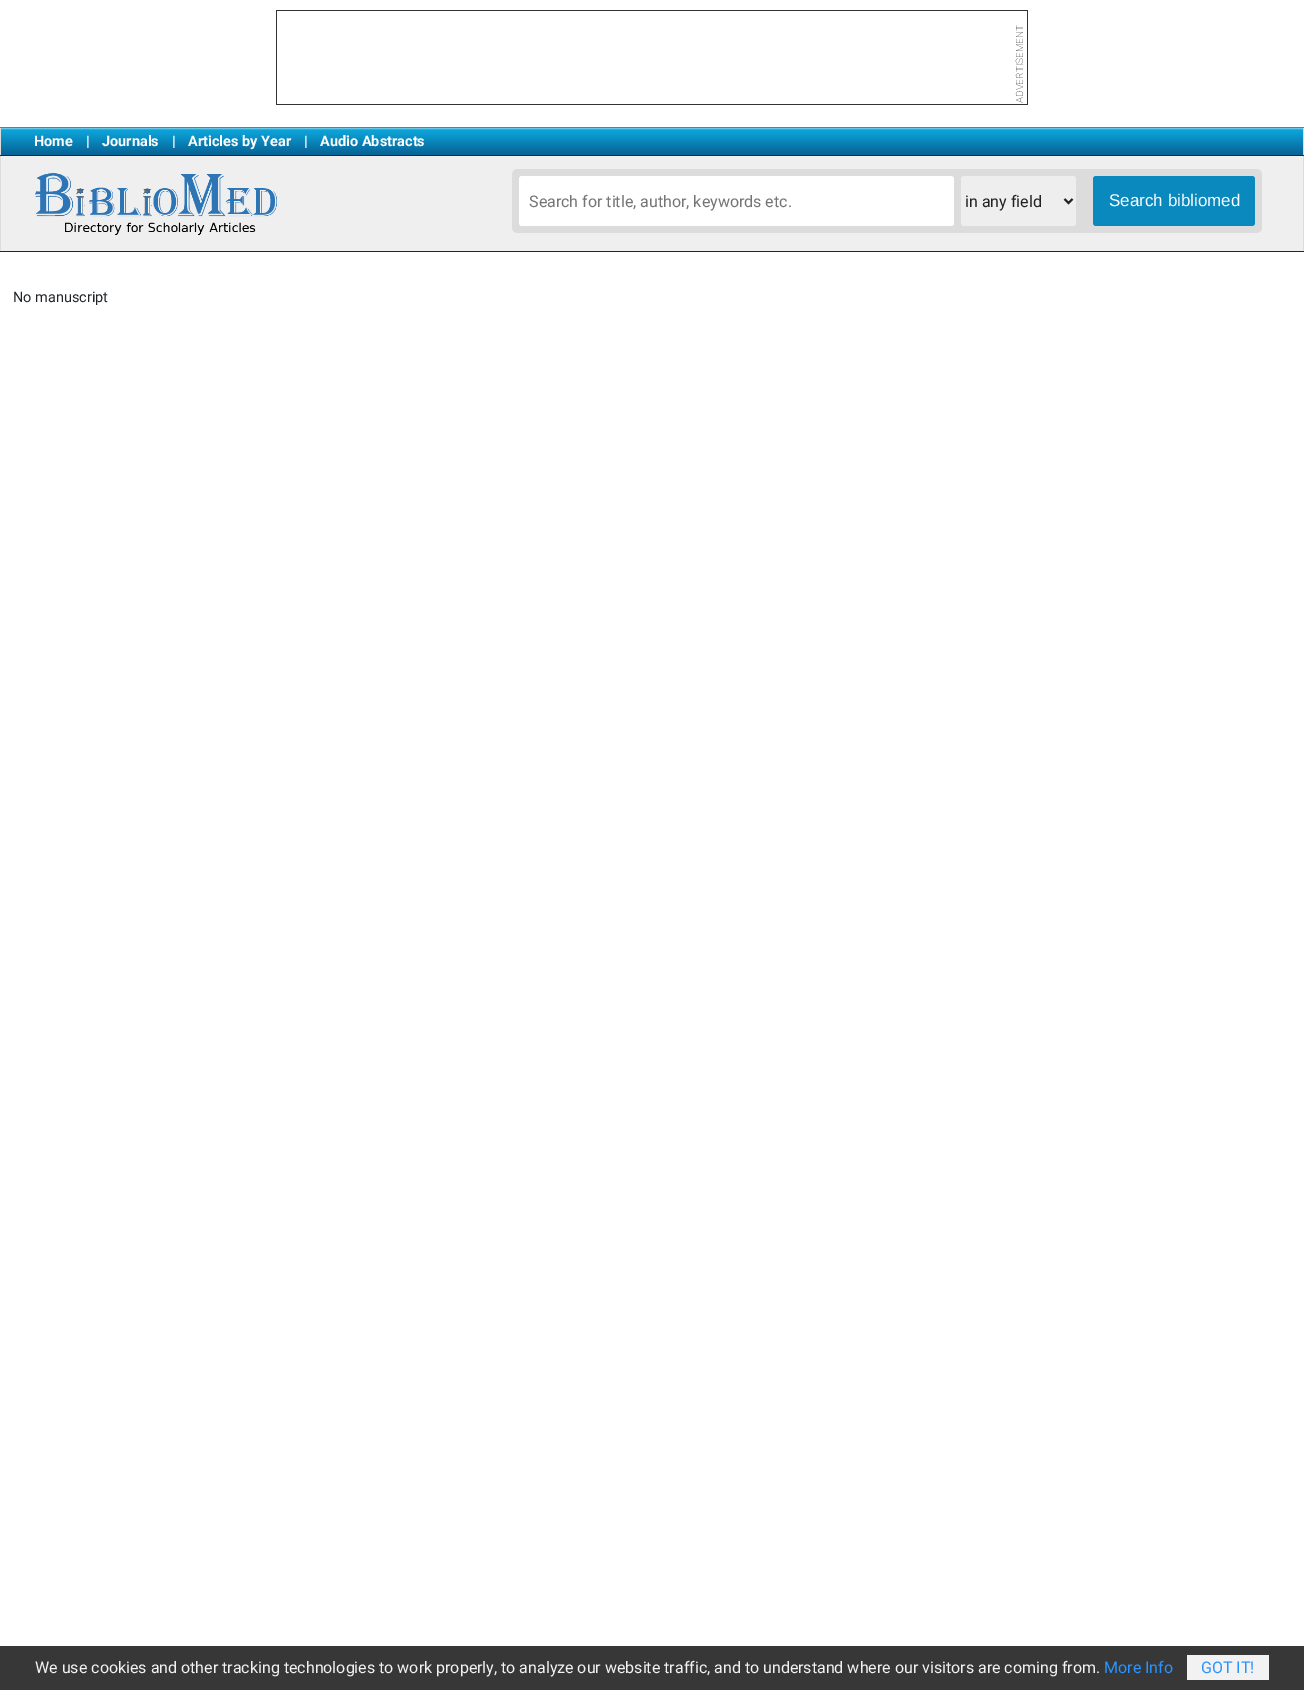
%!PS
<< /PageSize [1304 1690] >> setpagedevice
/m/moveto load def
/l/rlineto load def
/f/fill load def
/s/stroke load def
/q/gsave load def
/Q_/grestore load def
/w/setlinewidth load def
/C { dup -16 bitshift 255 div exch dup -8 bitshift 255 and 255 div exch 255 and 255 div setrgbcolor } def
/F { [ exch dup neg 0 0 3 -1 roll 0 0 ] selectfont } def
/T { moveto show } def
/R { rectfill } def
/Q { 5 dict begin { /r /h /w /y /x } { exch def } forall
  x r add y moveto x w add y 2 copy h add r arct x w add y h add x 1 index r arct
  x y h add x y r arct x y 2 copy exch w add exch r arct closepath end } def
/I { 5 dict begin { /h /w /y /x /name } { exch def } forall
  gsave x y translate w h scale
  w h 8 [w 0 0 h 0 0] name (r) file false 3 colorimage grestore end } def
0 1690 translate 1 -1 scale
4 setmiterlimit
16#FFFFFF C
0 0 1304 1690 R
16#333333 C
276 10 752 1 R
1027 10 1 95 R
276 104 752 1 R
276 10 1 95 R
/Roboto-Thin 10 F
16#212529 C
q 1023 103 translate -90 rotate 0 0 m (ADVERTISEMENT) show Q_
16#EFEFEF C
1 156 1302 95 R
16#DDDDDD C
1303 127 1 125 R
0 127 1 125 R
(1.rgb) 472 128 831 27 I
16#787878 C
0 127 1304 1 R
16#242424 C
0 155 1304 1 R
(2.rgb) 1 128 471 27 I
/Roboto-Bold 14.5 F
16#FFFFFF C
(Home) 34 146 T
(|) 86 146 T
(Journals) 102 146 T
(|) 172 146 T
(Articles by Year) 188 146 T
(|) 304 146 T
(Audio Abstracts) 320 146 T
(3.rgb) 35 173 242 62 I
16#242424 C
0 251 1304 1 R
(4.rgb) 512 169 750 64 I
16#FFFFFF C
519 176 435 50 3 Q f
/Roboto-Regular 16 F
16#757575 C
(Search for title, author, keywords etc.) 529 207 T
16#EEEEEE C
961 176 115 50 3 Q f
16#222222 C
2 w
1064.5 199 m 4 4 l 4 -4 l s
(in any field) 965 207 T
16#0A89BE C
1093 176 162 50 3 Q f
/LiberationSans-Regular 17 F
16#FFFFFF C
(Search bibliomed) 1109 206 T
/Roboto-Regular 14.5 F
16#212529 C
(No manuscript) 13 302 T
16#373737 C
0 1646 1304 44 R
/Roboto-Regular 16 F
16#F2F2F2 C
(We use cookies and other tracking technologies to work properly, to analyze our website traffic, and to understand where our visitors are coming from.) 35 1673 T
16#2994FF C
(More Info) 1104 1673 T
16#F2F2F2 C
1187 1655 82 25 R
16#2994FF C
(GOT IT!) 1201 1673 T
showpage
